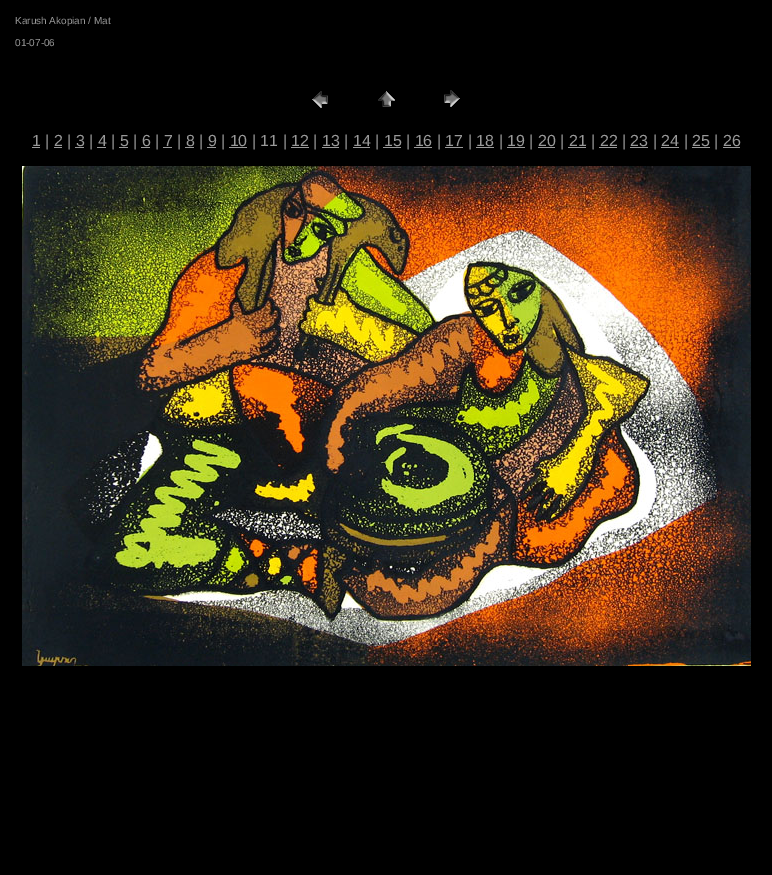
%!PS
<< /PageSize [772 875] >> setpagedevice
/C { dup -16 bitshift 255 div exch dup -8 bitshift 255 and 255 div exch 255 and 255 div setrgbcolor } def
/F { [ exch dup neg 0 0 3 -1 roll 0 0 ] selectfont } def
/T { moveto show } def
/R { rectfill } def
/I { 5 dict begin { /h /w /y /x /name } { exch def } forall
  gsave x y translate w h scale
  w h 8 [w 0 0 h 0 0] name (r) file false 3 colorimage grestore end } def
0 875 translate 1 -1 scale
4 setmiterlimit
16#000000 C
0 0 772 875 R
/LiberationSans-Regular 10 F
16#999999 C
(Karush Akopian / Mat) 15 24 T
(01-07-06) 15 46 T
(1.rgb) 312 91 16 17 I
(2.rgb) 378 91 17 16 I
(3.rgb) 444 90 16 17 I
32 147 8 1 R
/LiberationSans-Regular 16 F
(1 | 2 | 3 | 4 | 5 | 6 | 7 | 8 | 9 | 10 | 11 | 12 | 13 | 14 | 15 | 16 | 17 | 18 | 19 | 20 | 21 | 22 | 23 | 24 | 25 | 26) 32 146 T
54 147 8 1 R
75 147 9 1 R
97 147 9 1 R
119 147 9 1 R
141 147 9 1 R
163 147 9 1 R
185 147 9 1 R
207 147 9 1 R
229 147 18 1 R
291 147 18 1 R
322 147 17 1 R
353 147 17 1 R
383 147 18 1 R
414 147 18 1 R
445 147 18 1 R
476 147 18 1 R
507 147 18 1 R
538 147 17 1 R
568 147 18 1 R
599 147 18 1 R
630 147 18 1 R
661 147 18 1 R
692 147 18 1 R
723 147 17 1 R
(4.rgb) 22 166 729 500 I
showpage
